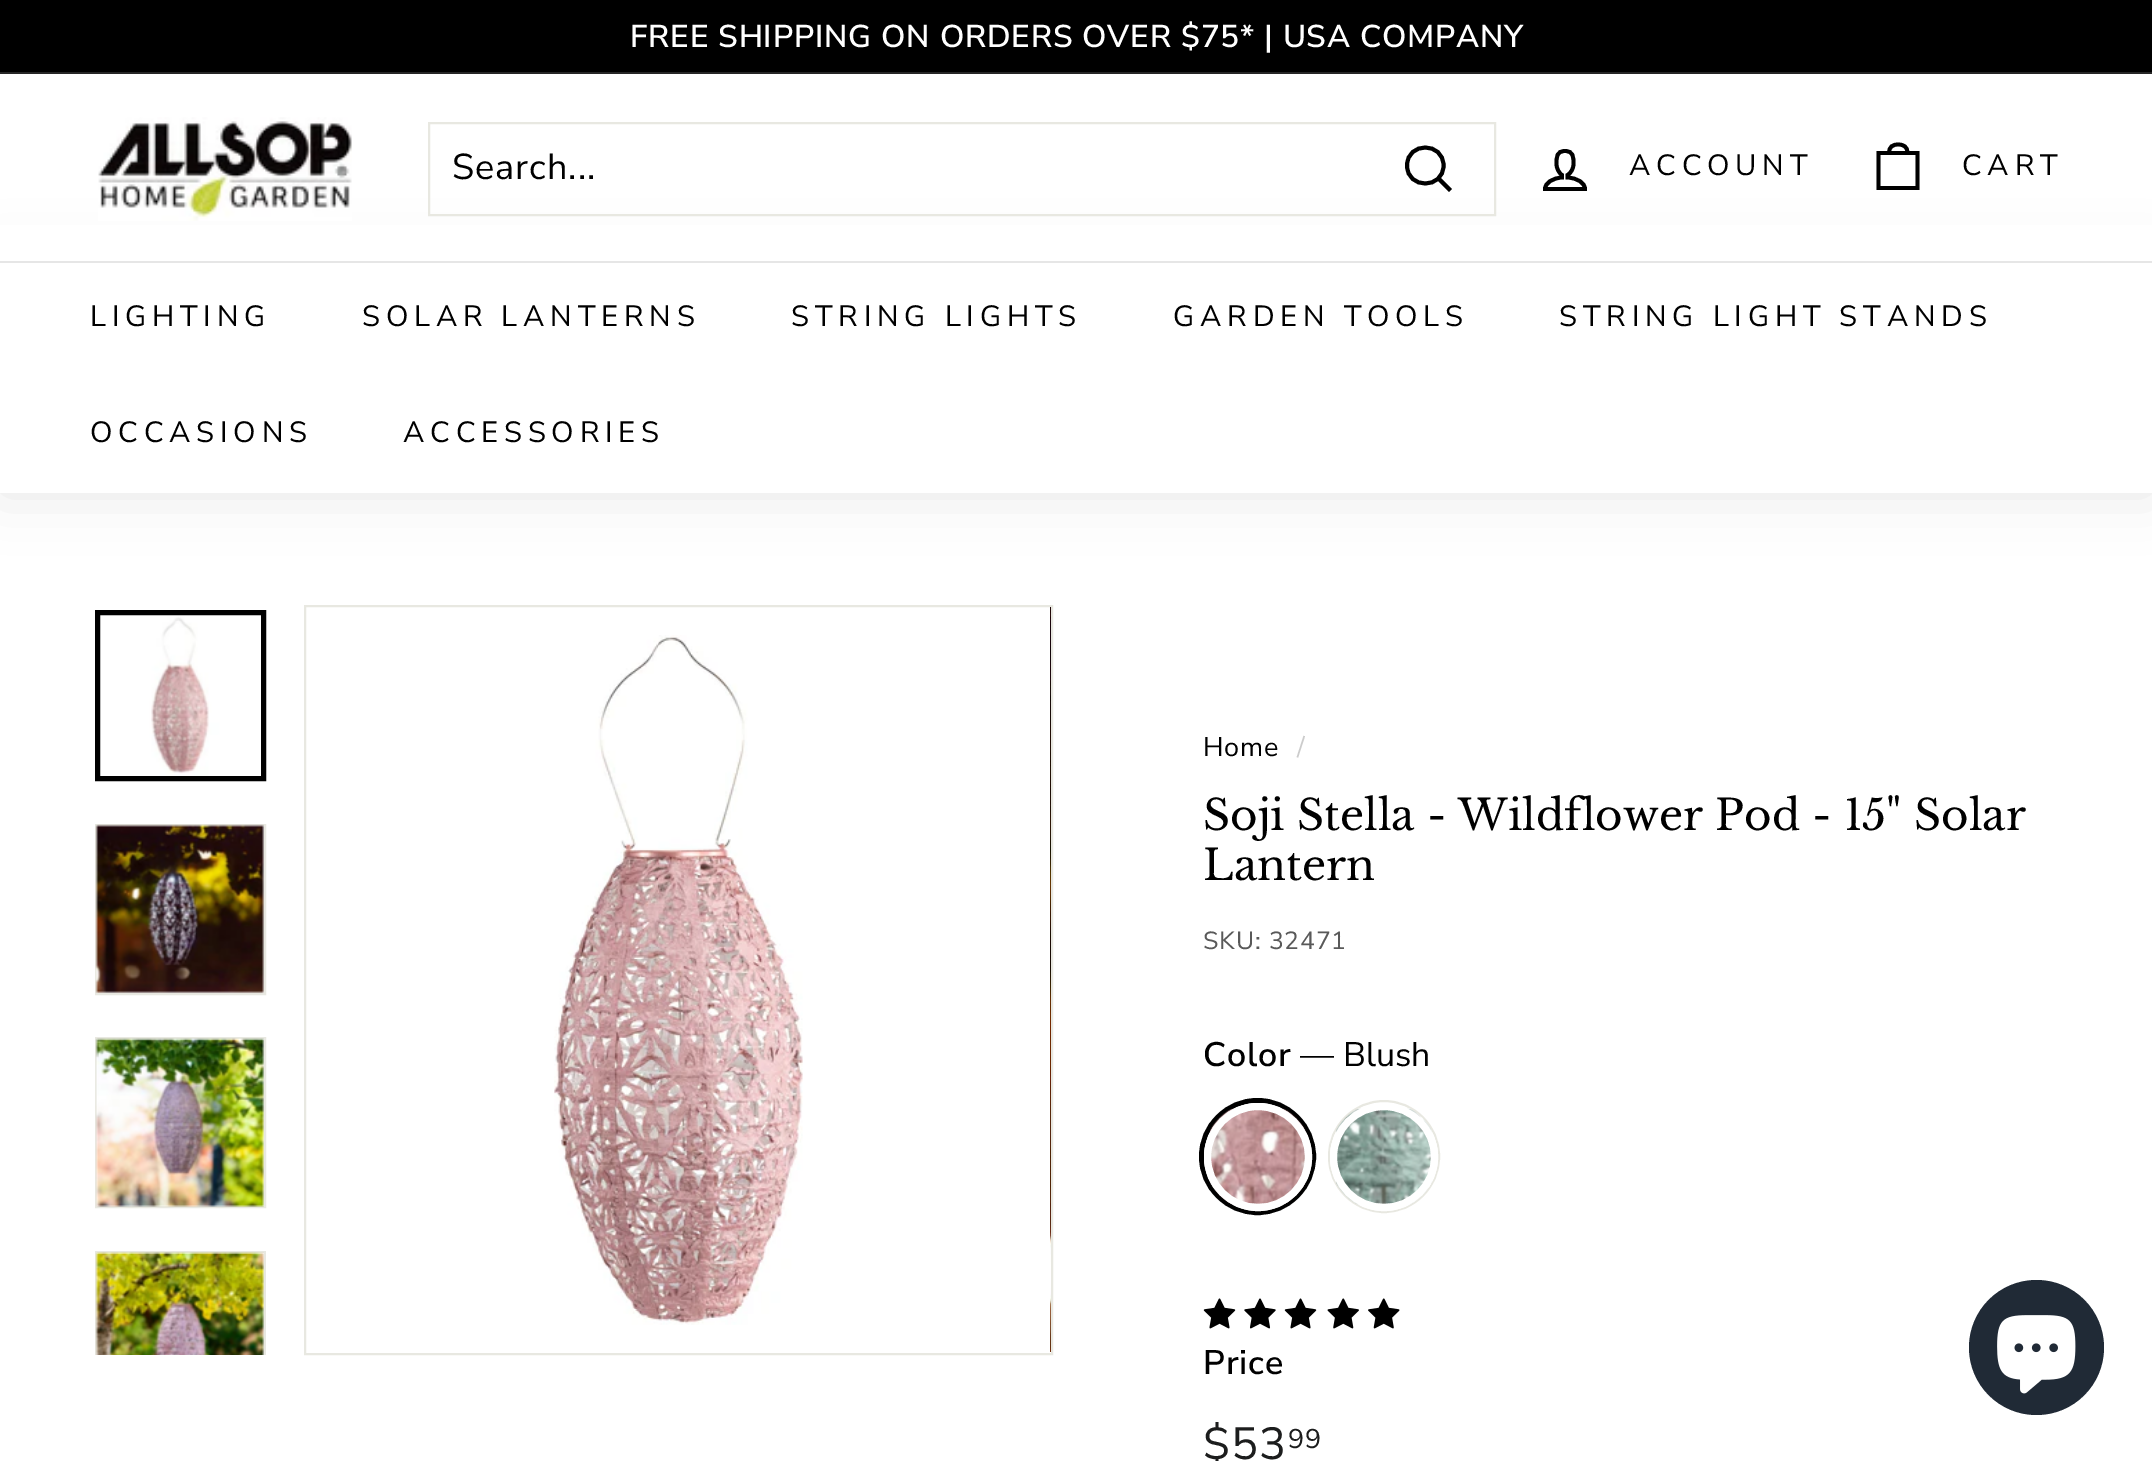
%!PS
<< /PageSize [2152 1461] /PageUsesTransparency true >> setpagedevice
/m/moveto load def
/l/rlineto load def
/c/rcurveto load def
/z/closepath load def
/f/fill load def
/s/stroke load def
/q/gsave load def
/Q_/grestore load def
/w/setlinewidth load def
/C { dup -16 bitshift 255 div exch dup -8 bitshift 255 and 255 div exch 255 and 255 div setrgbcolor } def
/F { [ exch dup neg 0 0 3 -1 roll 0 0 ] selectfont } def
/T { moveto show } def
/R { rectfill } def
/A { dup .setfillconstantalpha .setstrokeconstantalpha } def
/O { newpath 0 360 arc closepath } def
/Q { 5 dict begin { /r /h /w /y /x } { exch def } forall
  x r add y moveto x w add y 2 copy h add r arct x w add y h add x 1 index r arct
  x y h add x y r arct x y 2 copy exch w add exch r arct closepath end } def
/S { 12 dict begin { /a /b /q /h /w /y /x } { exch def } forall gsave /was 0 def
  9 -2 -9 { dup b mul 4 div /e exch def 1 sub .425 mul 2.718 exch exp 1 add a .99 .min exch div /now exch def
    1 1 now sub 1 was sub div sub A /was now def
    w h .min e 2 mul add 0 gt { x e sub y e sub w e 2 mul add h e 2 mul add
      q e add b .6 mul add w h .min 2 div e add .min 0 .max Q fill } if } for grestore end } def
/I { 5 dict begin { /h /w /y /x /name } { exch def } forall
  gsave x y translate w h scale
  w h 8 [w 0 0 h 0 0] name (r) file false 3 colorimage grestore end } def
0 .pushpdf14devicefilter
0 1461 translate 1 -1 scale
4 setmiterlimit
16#FFFFFF C
0 0 2152 1461 R
16#000000 C
0 0 2152 72 R
/NunitoSans-SemiBold 31.5 F
16#FFFFFF C
630 47 m .8 0 (FREE SHIPPING ON ORDERS OVER $75* | USA COMPANY) ashow
16#262626 C
0 72 2152 2 R
16#000000 C
0 261 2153 232 0 28 .1 S
16#FFFFFF C
0 225 2152 36 R
(1.rgb) 98 117 254 104 I
16#E8E8E1 C
2 w
429 123 1066 92 rectstroke
/NunitoSans-Regular 36 F
16#000000 C
452 179 m 1 0 (Search...) ashow
3.9 w
1443.5 165.5 m 0 24 -36.5 24 -36.5 0 c 0 -24 36.5 -24 36.5 0 c z 1450.5 190.5 m -12 -12 l s
3.8 w
1567.5 177.5 m 0 -2.5 l 3.5 -2 6 -6.5 6 -11 c 0 -7 0 -13 -8.5 -13 c -8.5 0 -8.5 6 -8.5 13 c 0 4.5 2.5 9 5.5 11 c 0 2.5 l -9.5 .5 -17 5.5 -17 11.5 c 40 0 l 0 -6 -7.5 -11 -17.5 -11.5 c z s
/NunitoSans-Regular 29.25 F
1629 175 m 5.8 0 (ACCOUNT) ashow
1889 153 m 0 -6.5 4 -8.5 9 -8.5 c 5.5 0 9.5 2 9.5 8.5 c 1878.5 153 m 39 0 l 0 35 l -39 0 l z s
1962 175 m 5.8 0 (CART) ashow
16#FFFFFF C
0 263 2152 230 R
16#E6E6E6 C
0 261 2152 2 R
16#000000 C
90 326 m 5.8 0 (LIGHTING) ashow
362 326 m 5.8 0 (SOLAR LANTERNS) ashow
791 326 m 5.8 0 (STRING LIGHTS) ashow
1173 326 m 5.8 0 (GARDEN TOOLS) ashow
1559 326 m 5.8 0 (STRING LIGHT STANDS) ashow
90 442 m 5.8 0 (OCCASIONS) ashow
403 442 m 5.8 0 (ACCESSORIES) ashow
(2.rgb) 100 615 161 161 I
5 w
97.5 612.5 166 166 rectstroke
16#E8E8E1 C
2 w
96 825 169 169 rectstroke
(3.rgb) 95 824 169 169 I
96 1038 169 169 rectstroke
(4.rgb) 95 1038 169 169 I
q
95 1251 171 104 rectclip
96 1252 169 169 rectstroke
Q_
(5.rgb) 95 1252 169 103 I
305 606 747 748 rectstroke
(6.rgb) 554 635 249 690 I
(7.rgb) 1050 607 1 745 I
/NunitoSans-Regular 27 F
16#000000 C
1203 756 m .8 0 (Home) ashow
16#CCCCCC C
1297 756 m .8 0 (/) ashow
/LibreBaskerville-Regular 42.1 F
16#000000 C
(Soji Stella - Wildflower Pod - 15" Solar) 1203 830 T
(Lantern) 1203 880 T
/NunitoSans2-Regular 24.75 F
16#595959 C
1203 949 m .8 0 (SKU: 32471) ashow
/NunitoSans-SemiBold 34 F
16#000000 C
1203 1066 m .8 0 (Color) ashow
/NunitoSans-Regular 34 F
(— Blush) 1300 1066 T
5 w
1257.5 1156.5 56 O s
16#FFFFFF C
1258 1157 54 O f
(8.rgb) 1210 1108 96 97 I
7 w
1258 1157 50.5 O s
16#E8E8E1 C
2 w
1329 1101 110 111 55 Q s
16#FFFFFF C
1384 1157 54 O f
(9.rgb) 1336 1108 96 97 I
7 w
1384 1157 50.5 O s
(10.rgb) 1203 1298 33 31 I
(11.rgb) 1244 1298 32 31 I
(10.rgb) 1284 1298 33 31 I
(12.rgb) 1327 1298 32 31 I
(13.rgb) 1368 1298 32 31 I
/NunitoSans-SemiBold 34 F
16#000000 C
1203 1374 m .8 0 (Price) ashow
/NunitoSans-Regular 45 F
16#1C1D1D C
1203 1459 m .8 0 ($53) ashow
/NunitoSans-Regular 27 F
1288 1448 m .8 0 (99) ashow
16#202A36 C
2036.5 1347.5 67.5 O f
(14.rgb) 1997 1315 79 79 I
.poppdf14devicefilter showpage
